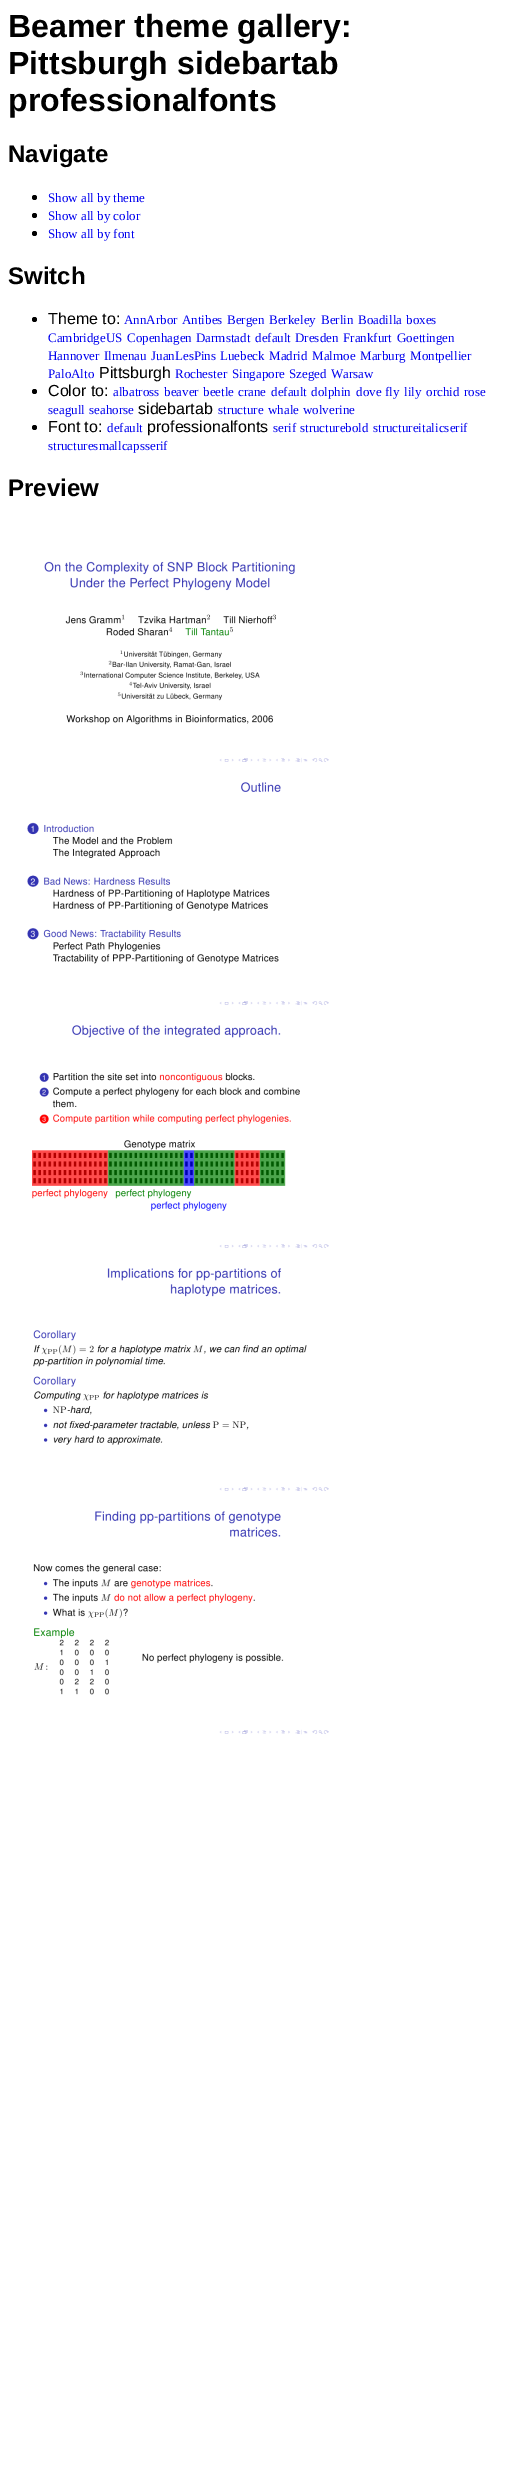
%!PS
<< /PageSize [515 2492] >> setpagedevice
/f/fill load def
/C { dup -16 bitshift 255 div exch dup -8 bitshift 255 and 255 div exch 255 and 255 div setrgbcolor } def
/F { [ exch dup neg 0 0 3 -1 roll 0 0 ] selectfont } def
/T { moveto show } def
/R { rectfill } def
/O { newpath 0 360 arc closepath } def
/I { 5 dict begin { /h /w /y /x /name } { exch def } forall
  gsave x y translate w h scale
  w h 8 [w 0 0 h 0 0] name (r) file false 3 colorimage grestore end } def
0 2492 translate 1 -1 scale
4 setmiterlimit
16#FFFFFF C
0 0 515 2492 R
/LiberationSans-Bold 32 F
16#000000 C
(Beamer theme gallery:) 8 37 T
(Pittsburgh sidebartab) 8 74 T
(professionalfonts) 8 111 T
/LiberationSans-Bold 24 F
(Navigate) 8 162 T
34.5 197.5 2.5 O f
/LiberationSerif-Regular 13 F
16#0000EE C
(Show all by theme) 48 202 T
16#000000 C
34.5 215.5 2.5 O f
16#0000EE C
(Show all by color) 48 220 T
16#000000 C
34.5 233.5 2.5 O f
16#0000EE C
(Show all by font) 48 238 T
/LiberationSans-Bold 24 F
16#000000 C
(Switch) 8 284 T
34.5 319.5 2.5 O f
/LiberationSans-Regular 16 F
(Theme to:) 48 324 T
/LiberationSerif-Regular 13 F
16#0000EE C
(AnnArbor) 124 324 T
(Antibes) 182 324 T
(Bergen) 227 324 T
(Berkeley) 269 324 T
(Berlin) 321 324 T
(Boadilla) 358 324 T
(boxes) 406 324 T
(CambridgeUS) 48 342 T
(Copenhagen) 127 342 T
(Darmstadt) 196 342 T
(default) 255 342 T
(Dresden) 295 342 T
(Frankfurt) 343 342 T
(Goettingen) 397 342 T
(Hannover) 48 360 T
(Ilmenau) 104 360 T
(JuanLesPins) 151 360 T
(Luebeck) 220 360 T
(Madrid) 269 360 T
(Malmoe) 312 360 T
(Marburg) 360 360 T
(Montpellier) 410 360 T
(PaloAlto) 48 378 T
/LiberationSans-Regular 16 F
16#000000 C
(Pittsburgh) 99 378 T
/LiberationSerif-Regular 13 F
16#0000EE C
(Rochester) 175 378 T
(Singapore) 232 378 T
(Szeged) 289 378 T
(Warsaw) 331 378 T
16#000000 C
34.5 391.5 2.5 O f
/LiberationSans-Regular 16 F
(Color to:) 48 396 T
/LiberationSerif-Regular 13 F
16#0000EE C
(albatross) 113 396 T
(beaver) 164 396 T
(beetle) 203 396 T
(crane) 238 396 T
(default) 271 396 T
(dolphin) 311 396 T
(dove) 356 396 T
(fly) 385 396 T
(lily) 404 396 T
(orchid) 426 396 T
(rose) 464 396 T
(seagull) 48 414 T
(seahorse) 89 414 T
/LiberationSans-Regular 16 F
16#000000 C
(sidebartab) 138 414 T
/LiberationSerif-Regular 13 F
16#0000EE C
(structure) 218 414 T
(whale) 268 414 T
(wolverine) 303 414 T
16#000000 C
34.5 427.5 2.5 O f
/LiberationSans-Regular 16 F
(Font to:) 48 432 T
/LiberationSerif-Regular 13 F
16#0000EE C
(default) 107 432 T
/LiberationSans-Regular 16 F
16#000000 C
(professionalfonts) 147 432 T
/LiberationSerif-Regular 13 F
16#0000EE C
(serif) 273 432 T
(structurebold) 300 432 T
(structureitalicserif) 373 432 T
(structuresmallcapsserif) 48 450 T
/LiberationSans-Bold 24 F
16#000000 C
(Preview) 8 496 T
(1.rgb) 44 561 285 202 I
(2.rgb) 27 782 302 224 I
(3.rgb) 32 1025 297 224 I
(4.rgb) 33 1268 296 224 I
(5.rgb) 33 1511 296 224 I
showpage
